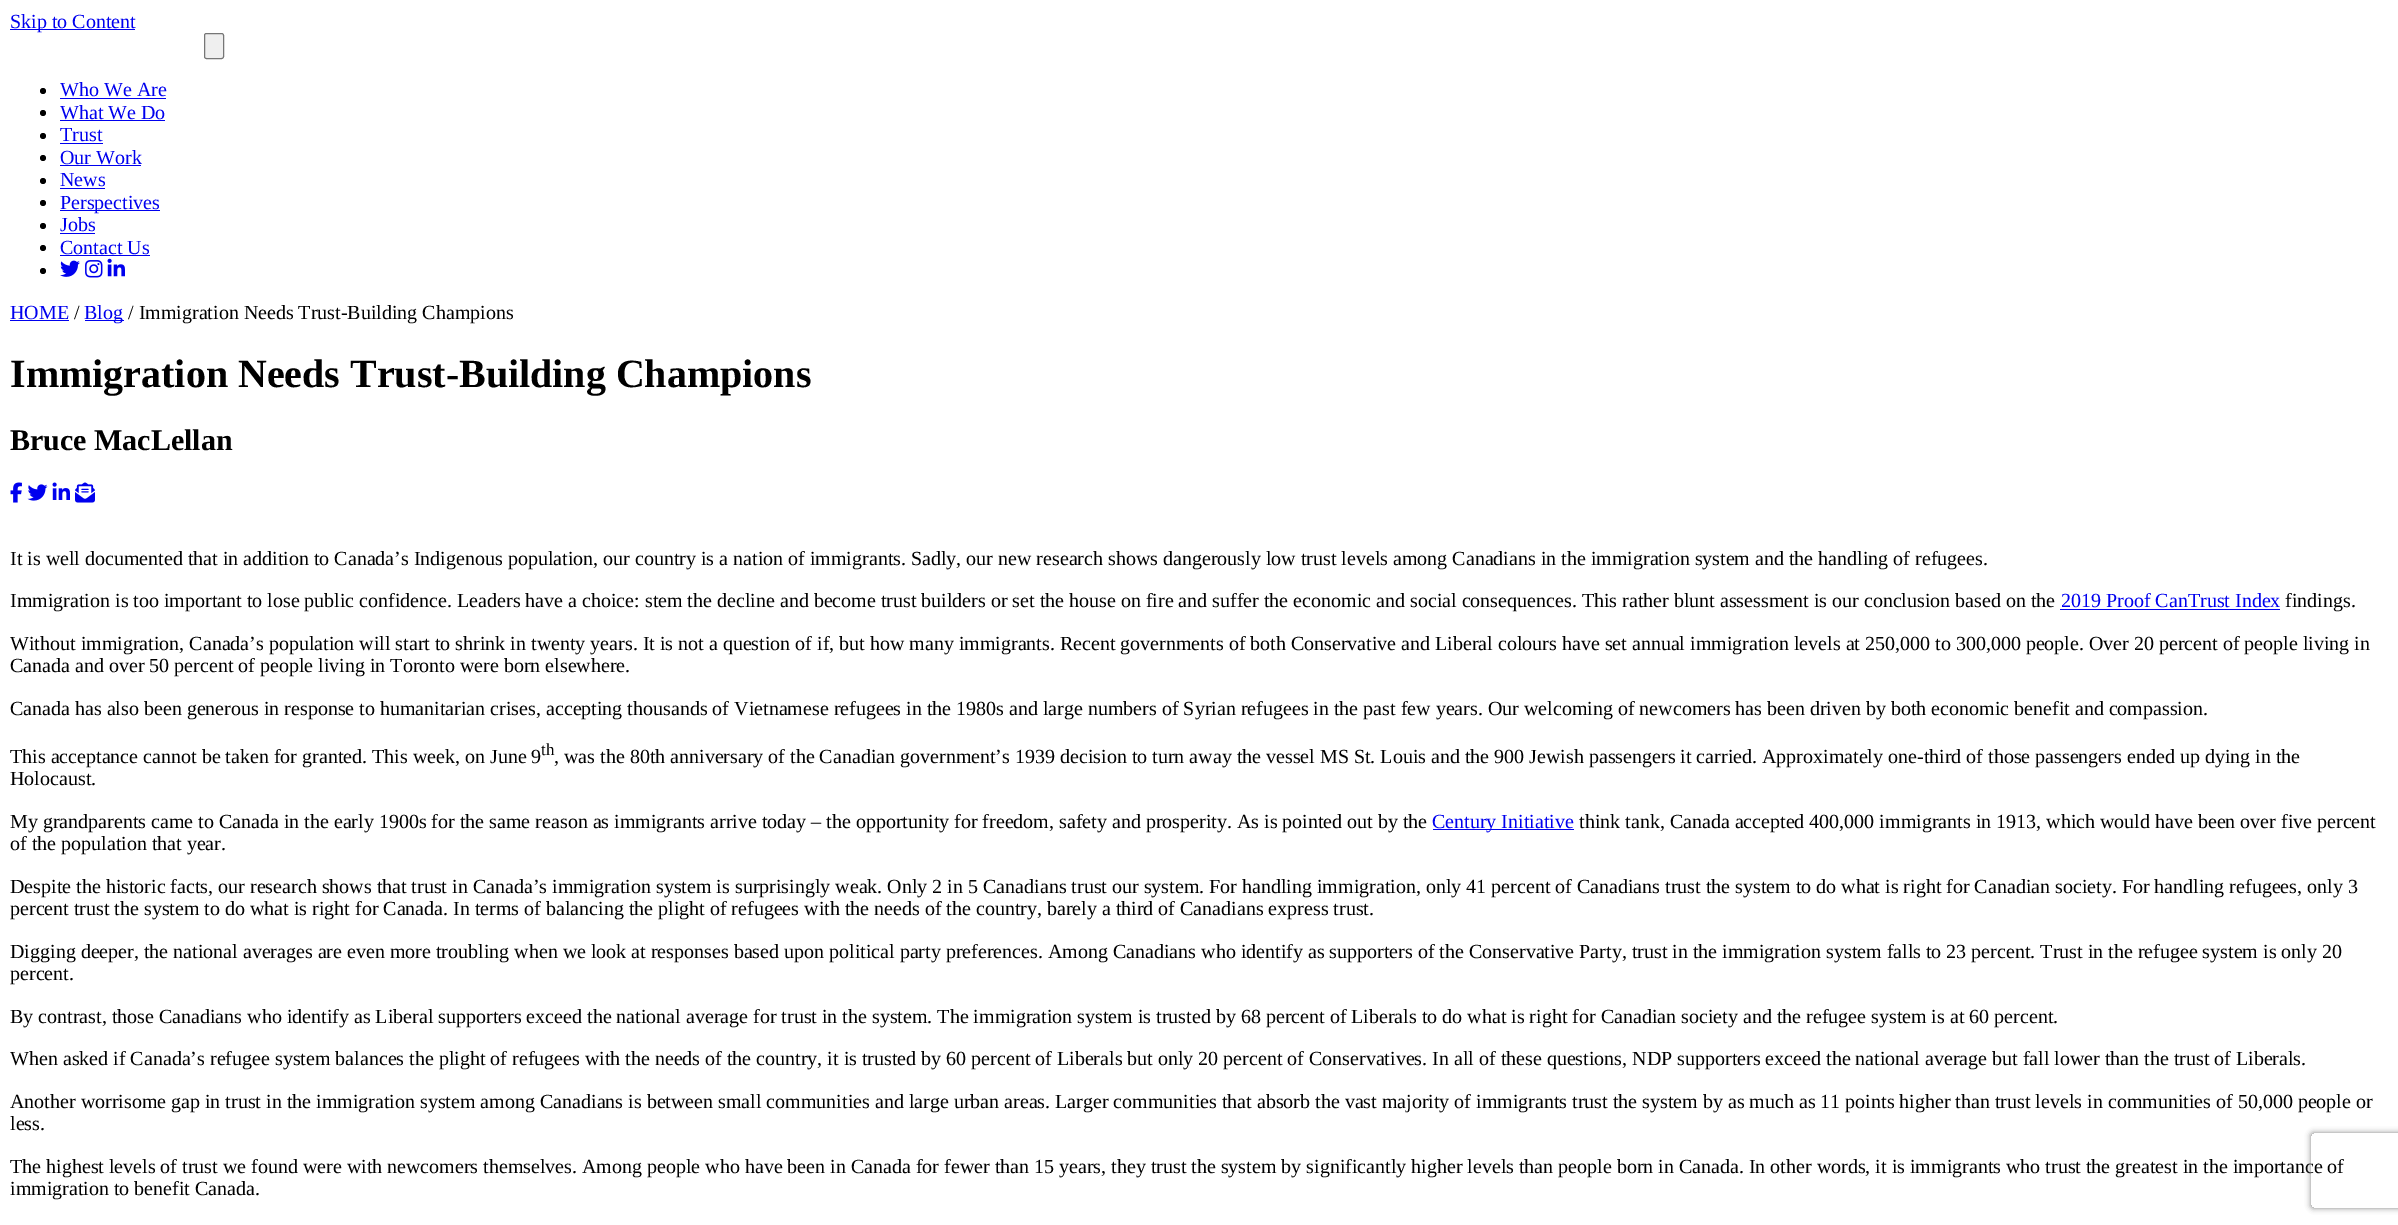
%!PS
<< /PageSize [2398 1225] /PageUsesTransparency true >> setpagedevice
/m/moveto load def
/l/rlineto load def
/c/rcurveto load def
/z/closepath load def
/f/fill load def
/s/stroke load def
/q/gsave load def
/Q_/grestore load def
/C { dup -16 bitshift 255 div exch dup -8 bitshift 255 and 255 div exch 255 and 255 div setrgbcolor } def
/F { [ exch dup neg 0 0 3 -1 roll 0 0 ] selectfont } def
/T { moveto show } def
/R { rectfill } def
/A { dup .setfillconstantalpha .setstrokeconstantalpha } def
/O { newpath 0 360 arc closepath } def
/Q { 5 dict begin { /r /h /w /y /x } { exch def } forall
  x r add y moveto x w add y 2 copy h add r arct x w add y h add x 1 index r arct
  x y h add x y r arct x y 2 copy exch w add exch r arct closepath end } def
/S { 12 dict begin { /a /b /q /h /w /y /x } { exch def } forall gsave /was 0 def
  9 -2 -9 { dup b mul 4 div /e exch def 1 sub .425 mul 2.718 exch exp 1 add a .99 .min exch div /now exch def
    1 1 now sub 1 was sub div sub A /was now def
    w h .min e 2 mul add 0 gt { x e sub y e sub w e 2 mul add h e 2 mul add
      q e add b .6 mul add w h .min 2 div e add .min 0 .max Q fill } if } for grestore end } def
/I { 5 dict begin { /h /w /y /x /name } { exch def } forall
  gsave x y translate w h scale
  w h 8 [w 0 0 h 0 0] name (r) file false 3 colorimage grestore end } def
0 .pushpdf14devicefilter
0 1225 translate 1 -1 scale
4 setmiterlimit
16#FFFFFF C
0 0 2398 1225 R
16#0000EE C
10 29 125 1 R
/LiberationSerif-Regular 20 F
(Skip to Content) 10 28 T
16#EFEFEF C
204.5 33.5 19 25 2 Q q f Q_
16#767676 C
s
16#000000 C
43 91 3 O f
16#0000EE C
(Who We Are) 60 96 T
60 98 106 1 R
16#000000 C
43 113 3 O f
16#0000EE C
(What We Do) 60 119 T
60 120 105 1 R
16#000000 C
43 136 3 O f
16#0000EE C
(Trust) 60 141 T
60 143 43 1 R
16#000000 C
43 158 3 O f
16#0000EE C
(Our Work) 60 164 T
60 165 81 1 R
16#000000 C
43 181 3 O f
16#0000EE C
(News) 60 186 T
60 188 45 1 R
16#000000 C
43 203 3 O f
16#0000EE C
60 210 100 1 R
(Perspectives) 60 209 T
16#000000 C
43 226 3 O f
16#0000EE C
(Jobs) 60 231 T
60 233 35 1 R
16#000000 C
43 248 3 O f
16#0000EE C
(Contact Us) 60 254 T
60 255 90 1 R
16#000000 C
43 271 3 O f
(1.rgb) 60 260 20 17 I
(2.rgb) 85 260 18 18 I
(3.rgb) 107 258 18 19 I
16#0000EE C
(HOME) 10 319 T
10 320 59 1 R
16#000000 C
(/) 74 319 T
16#0000EE C
85 320 39 1 R
(Blog) 84 319 T
16#000000 C
(/ Immigration Needs Trust-Building Champions) 128 319 T
/LiberationSerif-Bold 40 F
(Immigration Needs Trust-Building Champions) 10 387 T
/LiberationSerif-Bold 30 F
(Bruce MacLellan) 10 450 T
(4.rgb) 10 482 12 21 I
(5.rgb) 27 484 21 17 I
(6.rgb) 52 482 18 18 I
(7.rgb) 75 482 20 21 I
/LiberationSerif-Regular 20 F
(It is well documented that in addition to Canada’s Indigenous population, our country is a nation of immigrants. Sadly, our new research shows dangerously low trust levels among Canadians in the immigration system and the handling of refugees.) 10 565 T
(Immigration is too important to lose public confidence. Leaders have a choice: stem the decline and become trust builders or set the house on fire and suffer the economic and social consequences. This rather blunt assessment is our conclusion based on the) 10 607 T
16#0000EE C
(2019 Proof CanTrust Index) 2061 607 T
2060 609 220 1 R
16#000000 C
(findings.) 2285 607 T
(Without immigration, Canada’s population will start to shrink in twenty years. It is not a question of if, but how many immigrants. Recent governments of both Conservative and Liberal colours have set annual immigration levels at 250,000 to 300,000 people. Over 20 percent of people living in) 10 650 T
(Canada and over 50 percent of people living in Toronto were born elsewhere.) 10 672 T
(Canada has also been generous in response to humanitarian crises, accepting thousands of Vietnamese refugees in the 1980s and large numbers of Syrian refugees in the past few years. Our welcoming of newcomers has been driven by both economic benefit and compassion.) 10 715 T
(This acceptance cannot be taken for granted. This week, on June 9) 10 763 T
/LiberationSerif-Regular 17 F
(th) 541 755 T
/LiberationSerif-Regular 20 F
(, was the 80th anniversary of the Canadian government’s 1939 decision to turn away the vessel MS St. Louis and the 900 Jewish passengers it carried. Approximately one-third of those passengers ended up dying in the) 554 763 T
(Holocaust.) 10 785 T
(My grandparents came to Canada in the early 1900s for the same reason as immigrants arrive today – the opportunity for freedom, safety and prosperity. As is pointed out by the) 10 828 T
16#0000EE C
1433 829 141 1 R
(Century Initiative) 1432 828 T
16#000000 C
(think tank, Canada accepted 400,000 immigrants in 1913, which would have been over five percent) 1579 828 T
(of the population that year.) 10 850 T
(Despite the historic facts, our research shows that trust in Canada’s immigration system is surprisingly weak. Only 2 in 5 Canadians trust our system. For handling immigration, only 41 percent of Canadians trust the system to do what is right for Canadian society. For handling refugees, only 3) 10 893 T
(percent trust the system to do what is right for Canada. In terms of balancing the plight of refugees with the needs of the country, barely a third of Canadians express trust.) 10 915 T
(Digging deeper, the national averages are even more troubling when we look at responses based upon political party preferences. Among Canadians who identify as supporters of the Conservative Party, trust in the immigration system falls to 23 percent. Trust in the refugee system is only 20) 10 958 T
(percent.) 10 980 T
(By contrast, those Canadians who identify as Liberal supporters exceed the national average for trust in the system. The immigration system is trusted by 68 percent of Liberals to do what is right for Canadian society and the refugee system is at 60 percent.) 10 1023 T
(When asked if Canada’s refugee system balances the plight of refugees with the needs of the country, it is trusted by 60 percent of Liberals but only 20 percent of Conservatives. In all of these questions, NDP supporters exceed the national average but fall lower than the trust of Liberals.) 10 1065 T
(Another worrisome gap in trust in the immigration system among Canadians is between small communities and large urban areas. Larger communities that absorb the vast majority of immigrants trust the system by as much as 11 points higher than trust levels in communities of 50,000 people or) 10 1108 T
(less.) 10 1130 T
(The highest levels of trust we found were with newcomers themselves. Among people who have been in Canada for fewer than 15 years, they trust the system by significantly higher levels than people born in Canada. In other words, it is immigrants who trust the greatest in the importance of) 10 1173 T
(immigration to benefit Canada.) 10 1195 T
q
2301 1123 m 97 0 l 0 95 l -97 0 l z 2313.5 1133 m 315 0 l 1.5 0 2.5 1 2.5 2.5 c 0 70 l 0 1.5 -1 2.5 -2.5 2.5 c -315 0 l -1.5 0 -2.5 -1 -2.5 -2.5 c 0 -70 l 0 -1.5 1 -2.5 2.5 -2.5 c z eoclip newpath
16#808080 C
2311 1133 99 75 2.5 3 1 S
Q_
.poppdf14devicefilter showpage
